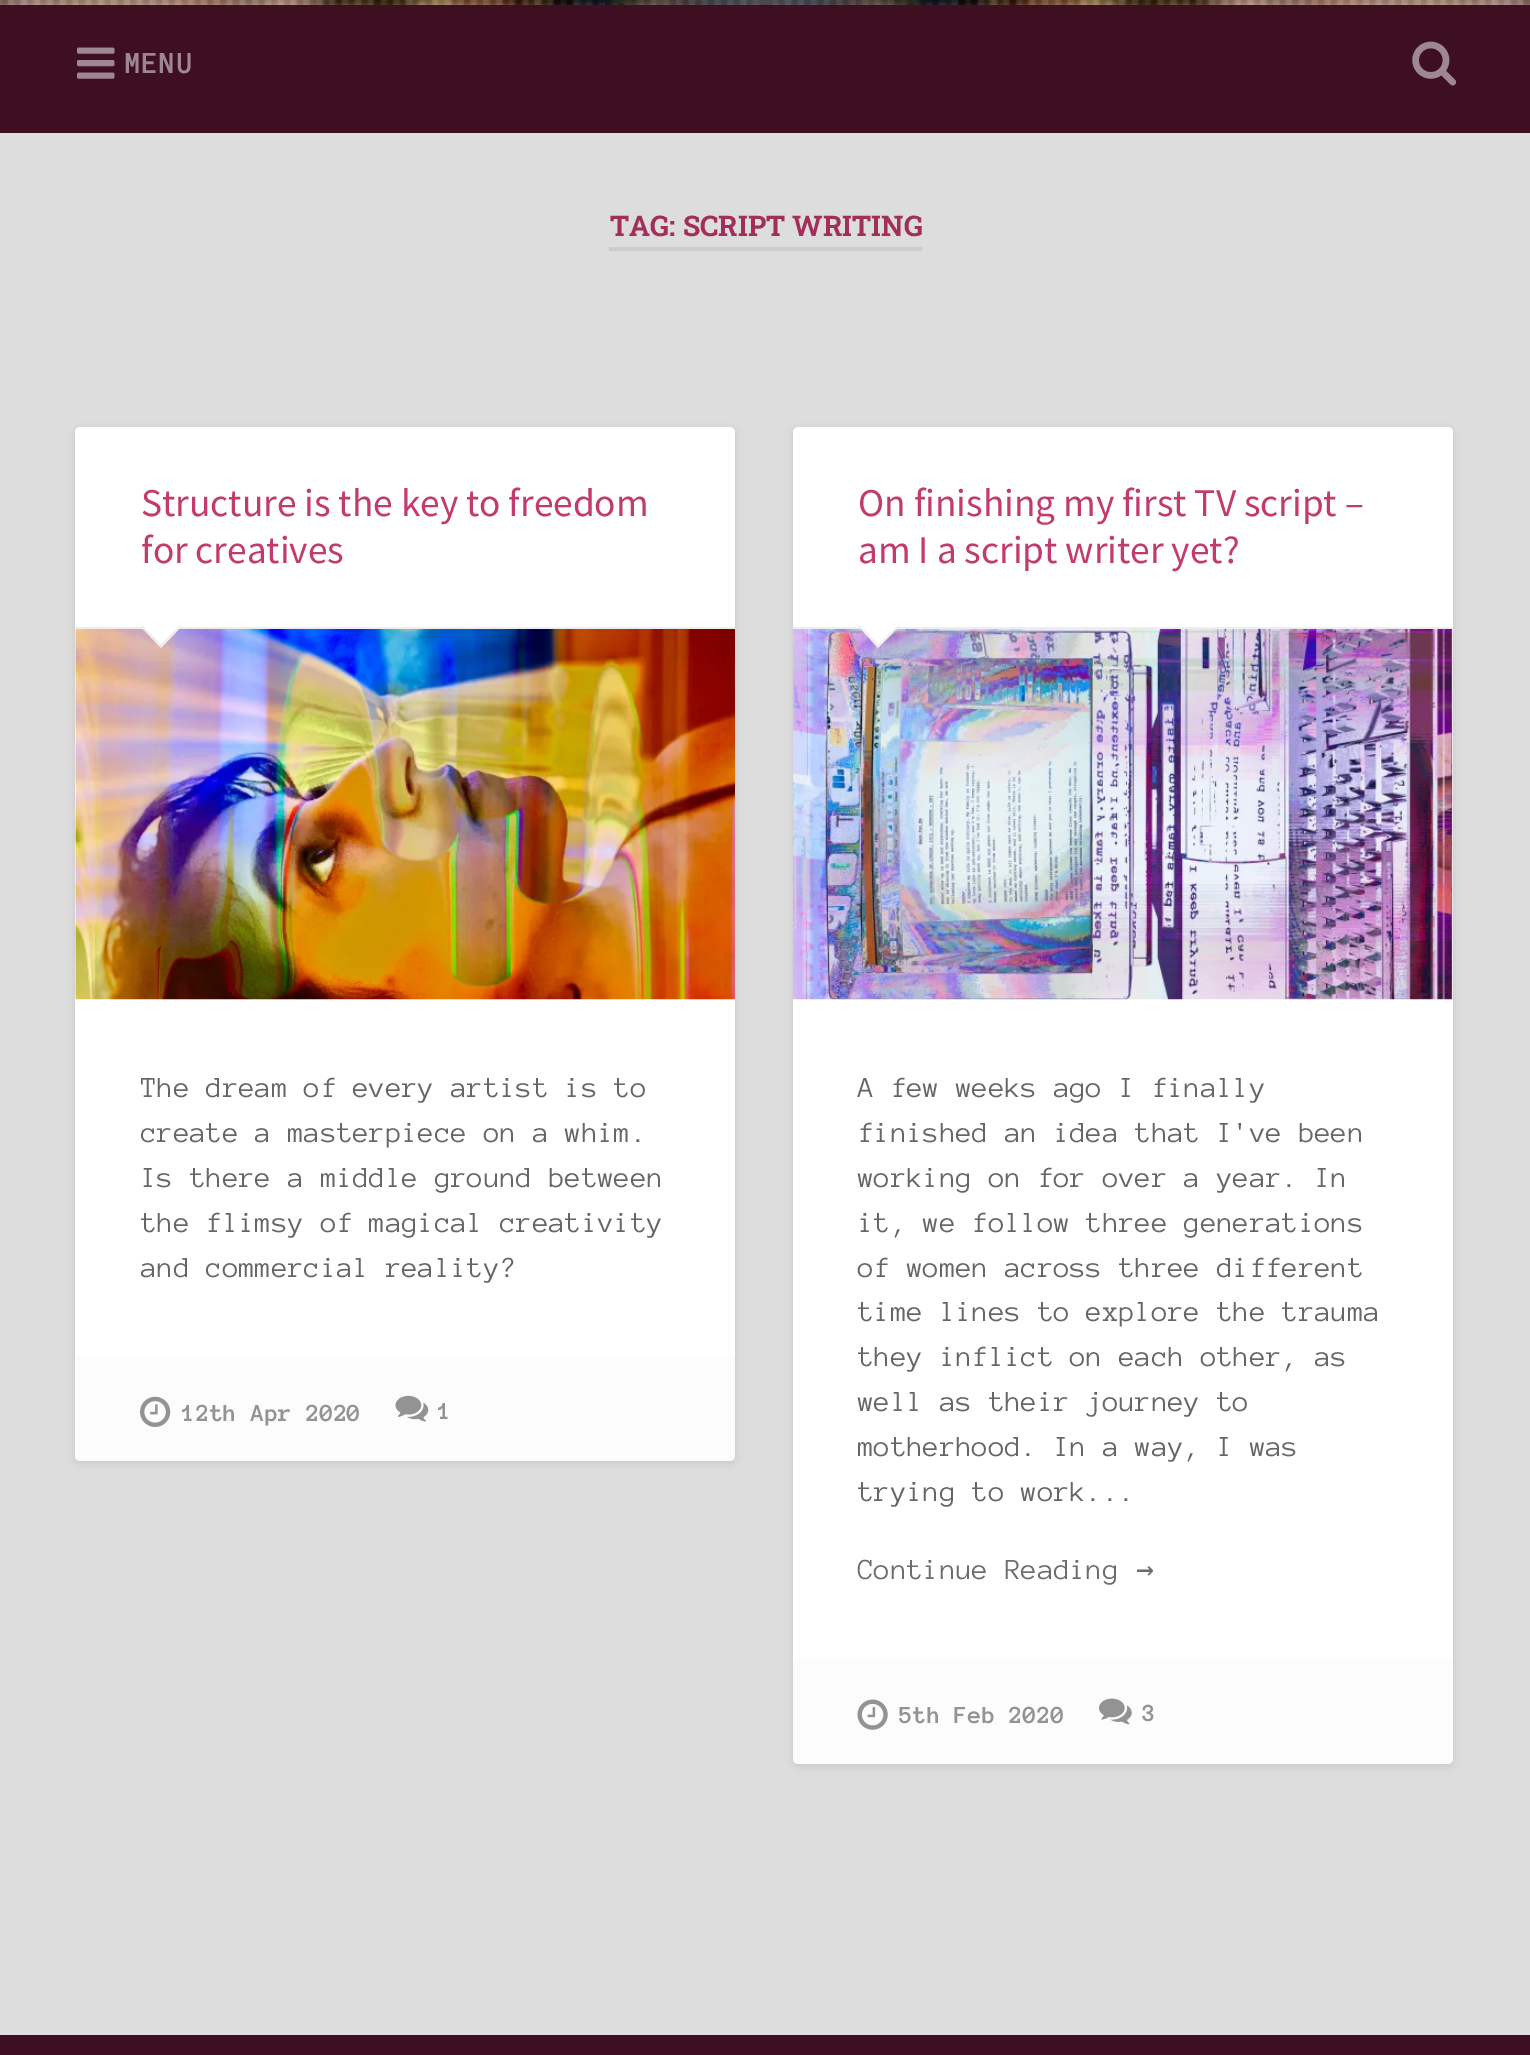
%!PS
<< /PageSize [1530 2055] /PageUsesTransparency true >> setpagedevice
/m/moveto load def
/l/rlineto load def
/c/rcurveto load def
/z/closepath load def
/f/fill load def
/C { dup -16 bitshift 255 div exch dup -8 bitshift 255 and 255 div exch 255 and 255 div setrgbcolor } def
/F { [ exch dup neg 0 0 3 -1 roll 0 0 ] selectfont } def
/T { moveto show } def
/R { rectfill } def
/A { dup .setfillconstantalpha .setstrokeconstantalpha } def
/Q { 5 dict begin { /r /h /w /y /x } { exch def } forall
  x r add y moveto x w add y 2 copy h add r arct x w add y h add x 1 index r arct
  x y h add x y r arct x y 2 copy exch w add exch r arct closepath end } def
/S { 12 dict begin { /a /b /q /h /w /y /x } { exch def } forall gsave /was 0 def
  9 -2 -9 { dup b mul 4 div /e exch def 1 sub .425 mul 2.718 exch exp 1 add a .99 .min exch div /now exch def
    1 1 now sub 1 was sub div sub A /was now def
    w h .min e 2 mul add 0 gt { x e sub y e sub w e 2 mul add h e 2 mul add
      q e add b .6 mul add w h .min 2 div e add .min 0 .max Q fill } if } for grestore end } def
/I { 5 dict begin { /h /w /y /x /name } { exch def } forall
  gsave x y translate w h scale
  w h 8 [w 0 0 h 0 0] name (r) file false 3 colorimage grestore end } def
0 .pushpdf14devicefilter
0 2055 translate 1 -1 scale
4 setmiterlimit
16#DDDDDD C
0 0 1530 2055 R
(1.rgb) 0 0 1530 5 I
0.25 A
16#1D1D1D C
0 0 1530 5 R
1 A
16#3D0F20 C
0 5 1530 128 R
(2.rgb) 77 47 38 32 I
/AnonymousPro-Bold 31.5 F
16#9E8790 C
(MENU) 125 73 T
(3.rgb) 1412 41 45 45 I
16#CCCCCC C
609 247 313 4 R
/RobotoSlab-Bold 28.4 F
16#A22F59 C
(TAG: SCRIPT WRITING) 610 236 T
16#000000 C
75 429 660 1034 5 3.5 .1 S
16#FFFFFF C
75 427 660 1034 5 Q f
16#EEEEEE C
75 627 660 2 R
/SourceSansPro-Regular 39.4 F
16#C33B6D C
(Structure is the key to freedom) 141 516 T
(for creatives) 141 563 T
(4.rgb) 75 629 660 371 I
16#EEEEEE C
140 626 m 42 0 l -21 22 l z f
16#FFFFFF C
142 625 m 38 0 l -19 19 l z f
/AnonymousPro-Regular 29.9 F
16#666666 C
(The dream of every artist is to) 141 1097 T
(create a masterpiece on a whim.) 141 1142 T
(Is there a middle ground between) 141 1187 T
(the flimsy of magical creativity) 141 1232 T
(and commercial reality?) 141 1277 T
0.1 A
16#DDDDDD C
75 1356 m 660 0 l 0 100 l 0 3 -2 5 -5 5 c -650 0 l -3 0 -5 -2 -5 -5 c z f
1 A
(5.rgb) 140 1396 31 31 I
/AnonymousPro-Bold 25.25 F
16#939393 C
(12th Apr 2020) 182 1421 T
(6.rgb) 395 1395 34 27 I
(1) 438 1419 T
16#000000 C
793 429 660 1337 5 3.5 .1 S
16#FFFFFF C
793 427 660 1337 5 Q f
16#EEEEEE C
793 627 660 2 R
/SourceSansPro-Regular 39.4 F
16#C33B6D C
(On finishing my first TV script –) 858 516 T
(am I a script writer yet?) 858 563 T
(7.rgb) 793 629 660 371 I
16#EEEEEE C
858 626 m 42 0 l -22 22 l z f
16#FFFFFF C
859 625 m 39 0 l -19.5 19 l z f
/AnonymousPro-Regular 29.9 F
16#666666 C
(A few weeks ago I finally) 858 1097 T
(finished an idea that I've been) 858 1142 T
(working on for over a year. In) 858 1187 T
(it, we follow three generations) 858 1232 T
(of women across three different) 858 1277 T
(time lines to explore the trauma) 858 1321 T
(they inflict on each other, as) 858 1366 T
(well as their journey to) 858 1411 T
(motherhood. In a way, I was) 858 1456 T
(trying to work...) 858 1501 T
16#6D6D6D C
(Continue Reading) 858 1579 T
/DejaVuSansMono-Regular 29.9 F
(→) 1136 1579 T
0.1 A
16#DDDDDD C
793 1659 m 660 0 l 0 100 l 0 3 -2 5 -5 5 c -650 0 l -3 0 -5 -2 -5 -5 c z f
1 A
(8.rgb) 857 1699 31 31 I
/AnonymousPro-Bold 25.25 F
16#939393 C
(5th Feb 2020) 899 1723 T
(9.rgb) 1099 1698 33 27 I
(3) 1142 1721 T
16#3D0F20 C
0 2035 1530 20 R
.poppdf14devicefilter showpage
